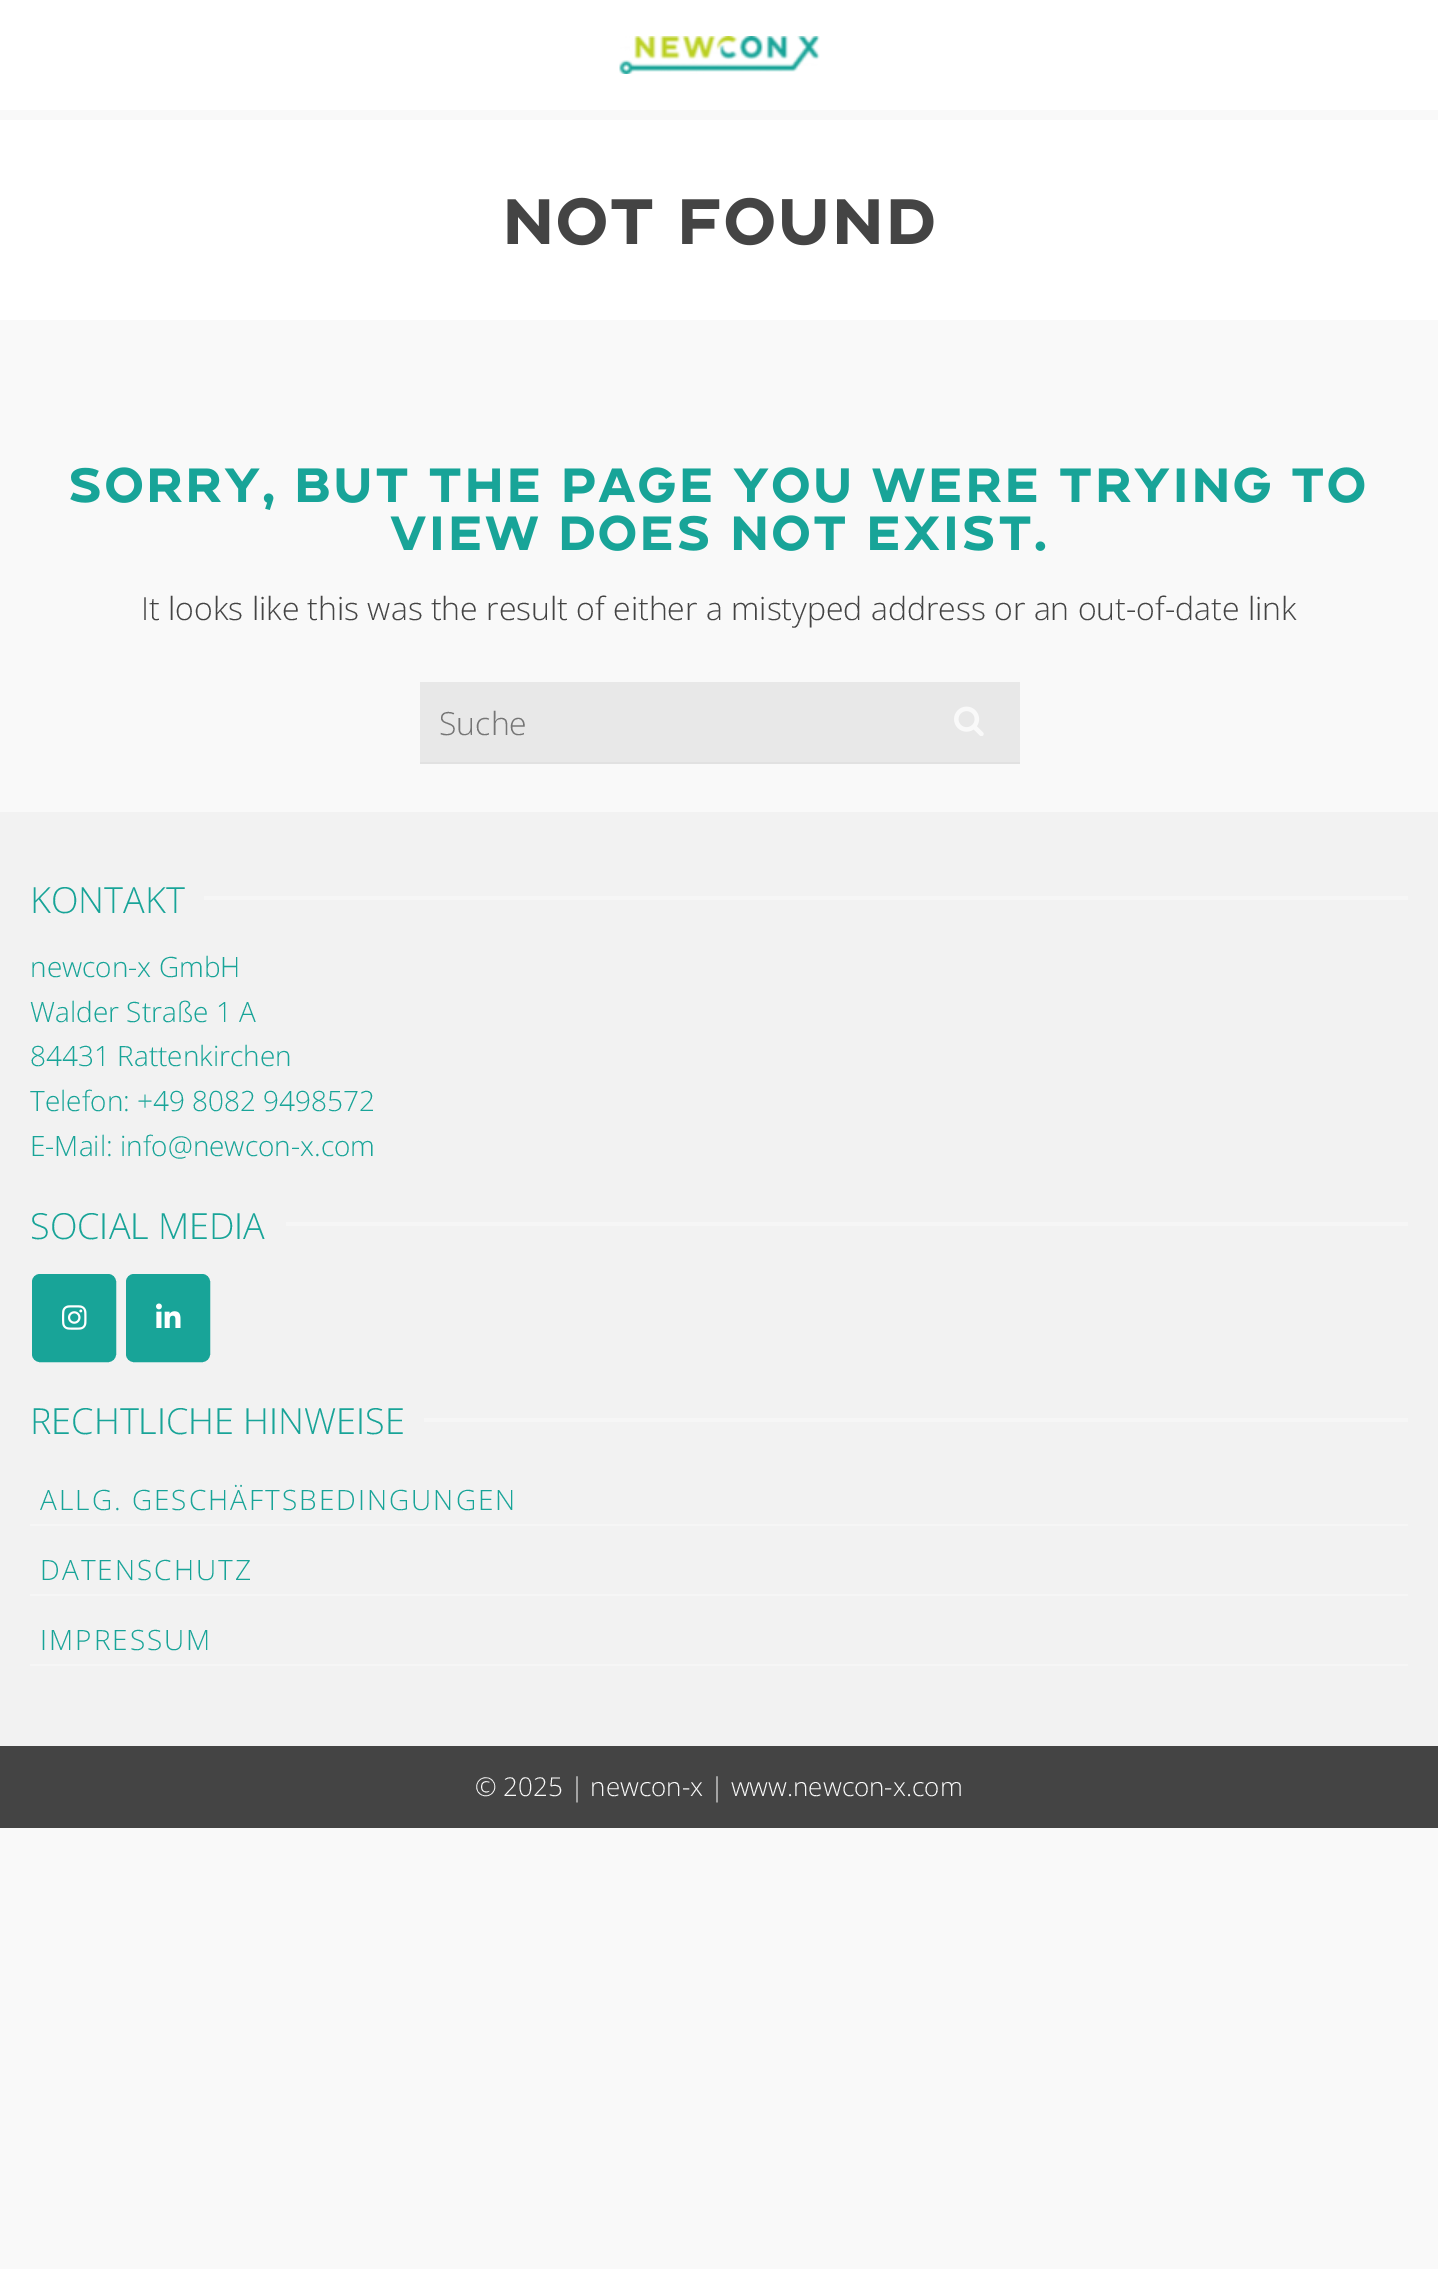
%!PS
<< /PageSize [1438 2269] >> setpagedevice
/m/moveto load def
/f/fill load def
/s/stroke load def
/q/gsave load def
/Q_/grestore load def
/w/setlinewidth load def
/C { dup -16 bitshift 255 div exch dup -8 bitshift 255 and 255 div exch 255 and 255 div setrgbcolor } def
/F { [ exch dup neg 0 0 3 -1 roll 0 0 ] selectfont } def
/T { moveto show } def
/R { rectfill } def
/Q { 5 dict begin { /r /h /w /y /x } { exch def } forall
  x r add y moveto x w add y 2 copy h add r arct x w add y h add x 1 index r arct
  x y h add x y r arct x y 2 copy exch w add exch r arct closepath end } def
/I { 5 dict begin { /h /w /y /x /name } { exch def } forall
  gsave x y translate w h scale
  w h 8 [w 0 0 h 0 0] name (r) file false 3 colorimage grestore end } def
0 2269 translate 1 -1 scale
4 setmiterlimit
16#F9F9F9 C
0 0 1438 2269 R
16#FFFFFF C
0 0 1438 320 R
16#F9F9F9 C
0 110 1438 10 R
(1.rgb) 619 36 201 38 I
(2.rgb) 507 197 427 49 I
(3.rgb) 70 467 1295 43 I
(4.rgb) 390 515 656 36 I
/OpenSans-Light 32 F
16#444444 C
(It looks like this was the result of either a mistyped address or an out-of-date link) 141 620 T
16#E1E1E1 C
420 762 600 2 R
16#E8E8E8 C
420 682 600 80 R
16#757575 C
(Suche) 439 735 T
(5.rgb) 954 706 30 30 I
16#F2F2F2 C
0 812 1438 934 R
/OpenSans-Light 36 F
16#18A498 C
(KONTAKT) 30 913 T
16#F6F6F6 C
204 896 1204 4 R
/OpenSans-Light 28 F
16#18A498 C
(newcon-x GmbH) 30 977 T
(Walder Straße 1 A) 30 1022 T
(84431 Rattenkirchen) 30 1066 T
(Telefon: +49 8082 9498572) 30 1111 T
(E-Mail: info@newcon-x.com) 30 1156 T
/OpenSans-Light 36 F
(SOCIAL MEDIA) 30 1239 T
16#F6F6F6 C
286 1222 1122 4 R
16#18A498 C
33 1275 82 86 7 Q q f Q_
2 w
s
(6.rgb) 62 1305 25 25 I
127 1275 82 86 7 Q q f Q_
s
(7.rgb) 156 1303 25 25 I
(RECHTLICHE HINWEISE) 30 1434 T
16#F6F6F6 C
424 1418 984 4 R
30 1524 1378 2 R
/OpenSans-Light 28 F
16#18A498 C
40 1510 m 2 0 (ALLG. GESCHÄFTSBEDINGUNGEN) ashow
16#F6F6F6 C
30 1594 1378 2 R
16#18A498 C
40 1580 m 2 0 (DATENSCHUTZ) ashow
16#F6F6F6 C
30 1664 1378 2 R
16#18A498 C
40 1650 m 2 0 (IMPRESSUM) ashow
16#444444 C
0 1746 1438 82 R
/OpenSans-Light 26 F
16#F9F9F9 C
(© 2025 | newcon-x | www.newcon-x.com) 475 1796 T
showpage
